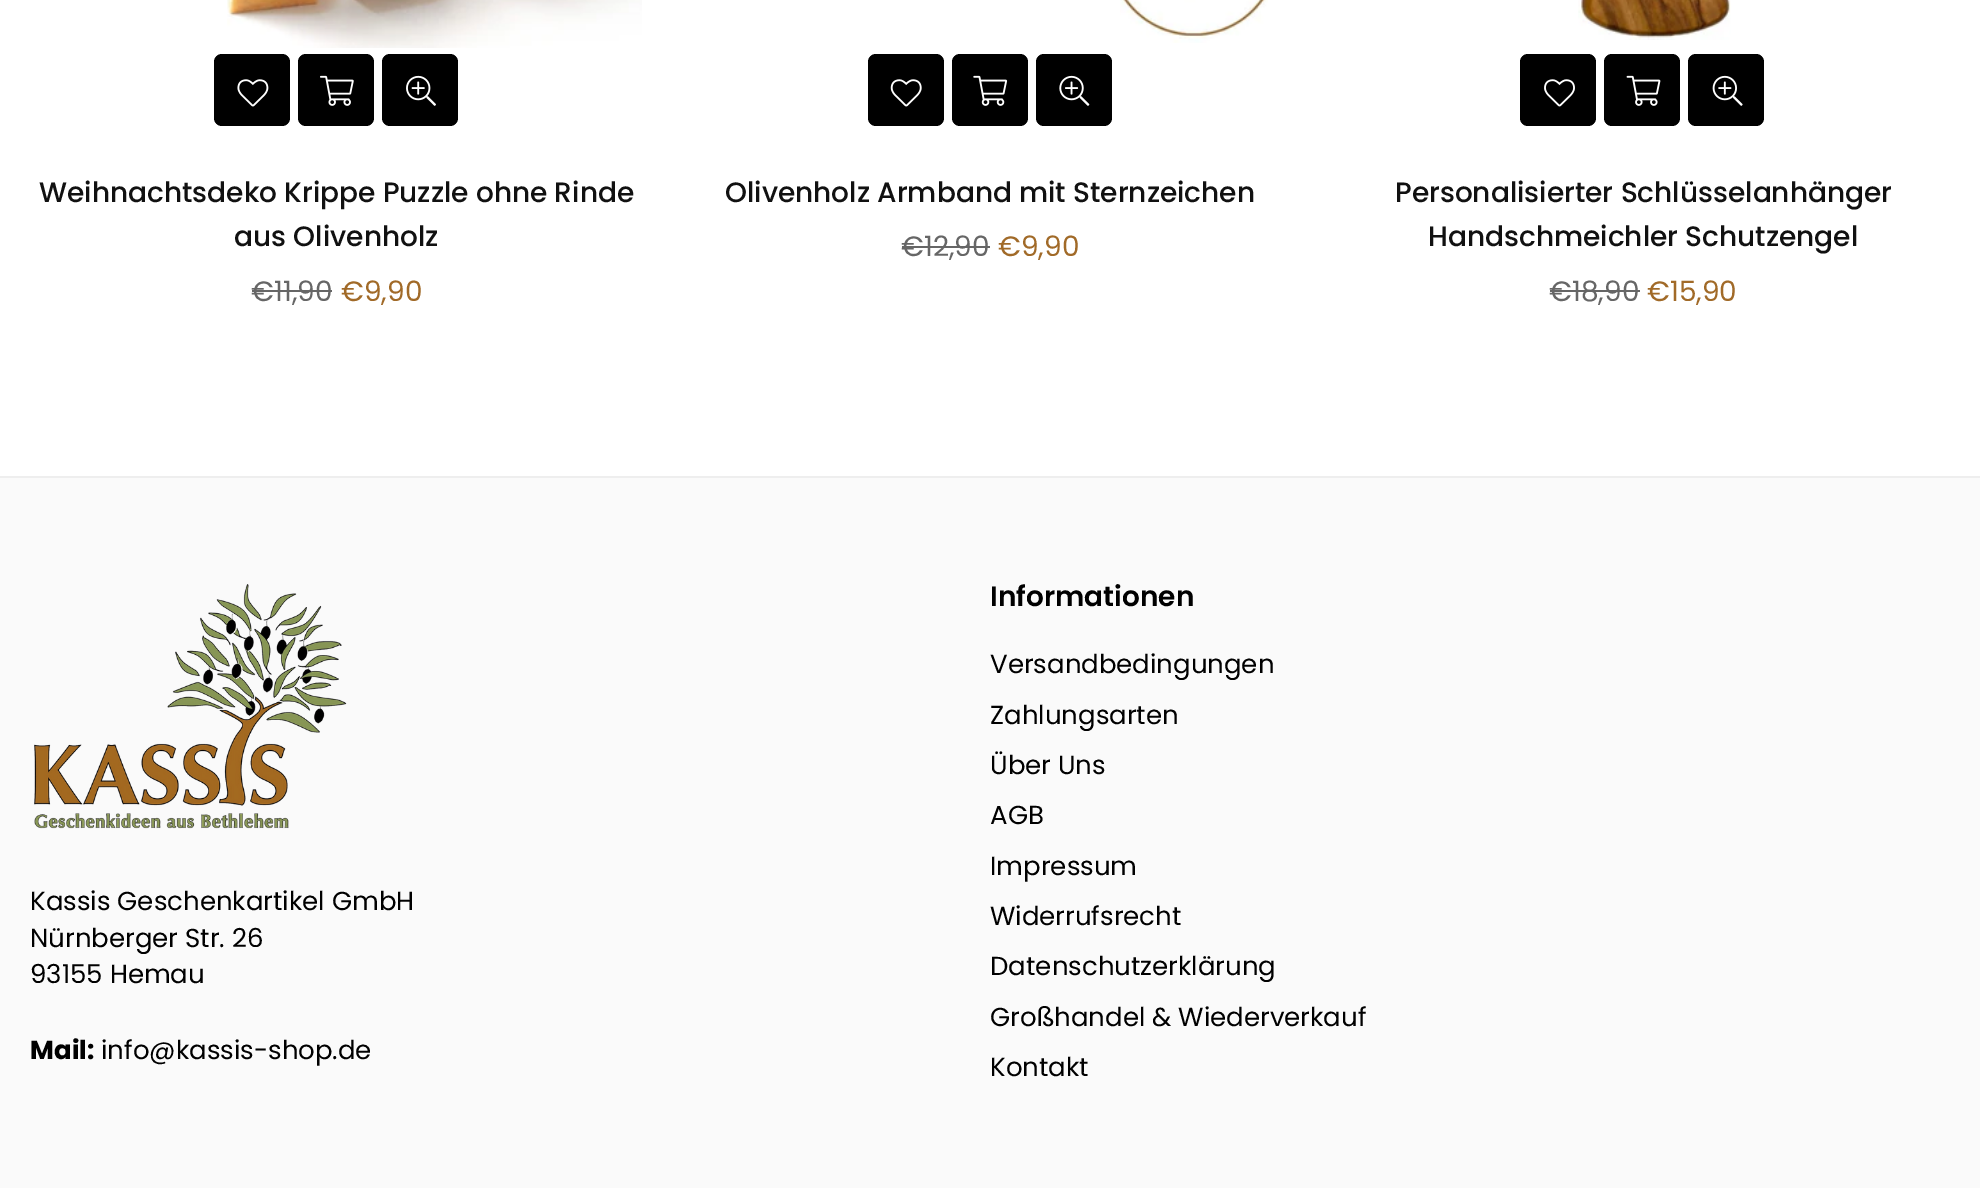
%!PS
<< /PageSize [1980 1188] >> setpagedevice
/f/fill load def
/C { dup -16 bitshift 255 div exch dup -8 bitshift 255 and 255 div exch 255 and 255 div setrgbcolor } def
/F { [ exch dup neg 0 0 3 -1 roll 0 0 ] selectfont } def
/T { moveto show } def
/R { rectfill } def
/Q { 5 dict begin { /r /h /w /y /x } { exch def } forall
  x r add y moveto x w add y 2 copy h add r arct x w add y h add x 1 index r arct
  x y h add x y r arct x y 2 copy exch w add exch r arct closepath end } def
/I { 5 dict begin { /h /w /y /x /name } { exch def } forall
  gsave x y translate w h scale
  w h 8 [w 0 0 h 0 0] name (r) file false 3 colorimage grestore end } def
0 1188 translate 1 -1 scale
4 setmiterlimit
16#FFFFFF C
0 0 1980 1188 R
(1.rgb) 227 0 415 48 I
16#000000 C
214 54 76 72 8 Q f
(2.rgb) 237 79 32 28 I
298 54 76 72 8 Q f
(3.rgb) 320 75 34 31 I
382 54 76 72 8 Q f
(4.rgb) 406 75 30 31 I
/Poppins-Medium 28 F
16#111111 C
(Weihnachtsdeko Krippe Puzzle ohne Rinde) 39 202 T
(aus Olivenholz) 234 246 T
/Poppins-Regular 28 F
16#666666 C
(€11,90) 251 301 T
252 290 80 2 R
16#A16A28 C
(€9,90) 341 301 T
(5.rgb) 1120 0 148 43 I
16#000000 C
868 54 76 72 8 Q f
(6.rgb) 890 79 32 28 I
952 54 76 72 8 Q f
(7.rgb) 973 75 35 31 I
1036 54 76 72 8 Q f
(8.rgb) 1059 75 31 31 I
/Poppins-Medium 28 F
16#111111 C
(Olivenholz Armband mit Sternzeichen) 725 202 T
/Poppins-Regular 28 F
16#666666 C
(€12,90) 901 256 T
902 246 88 2 R
16#A16A28 C
(€9,90) 998 256 T
(9.rgb) 1578 0 153 40 I
16#000000 C
1520 54 76 72 8 Q f
(10.rgb) 1544 79 31 28 I
1604 54 76 72 8 Q f
(11.rgb) 1626 75 35 31 I
1688 54 76 72 8 Q f
(12.rgb) 1712 75 31 31 I
/Poppins-Medium 28 F
16#111111 C
(Personalisierter Schlüsselanhänger) 1395 202 T
(Handschmeichler Schutzengel) 1428 246 T
/Poppins-Regular 28 F
16#666666 C
(€18,90) 1549 301 T
1550 290 90 2 R
16#A16A28 C
(€15,90) 1647 301 T
16#FAFAFA C
0 478 1980 710 R
16#EEEEEE C
0 476 1980 2 R
(13.rgb) 34 584 313 245 I
/Poppins-Regular 26 F
16#000000 C
(Kassis Geschenkartikel GmbH) 30 910 T
(Nürnberger Str. 26) 30 947 T
(93155 Hemau) 30 983 T
/Poppins-Bold 26 F
(Mail:) 30 1059 T
/Poppins-Regular 26 F
(info@kassis-shop.de) 101 1059 T
/Poppins-SemiBold 28 F
(Informationen) 990 606 T
/Poppins-Regular 26 F
(Versandbedingungen) 990 673 T
(Zahlungsarten) 990 724 T
(Über Uns) 990 774 T
(AGB) 990 824 T
(Impressum) 990 875 T
(Widerrufsrecht) 990 925 T
(Datenschutzerklärung) 990 975 T
(Großhandel & Wiederverkauf) 990 1026 T
(Kontakt) 990 1076 T
showpage
